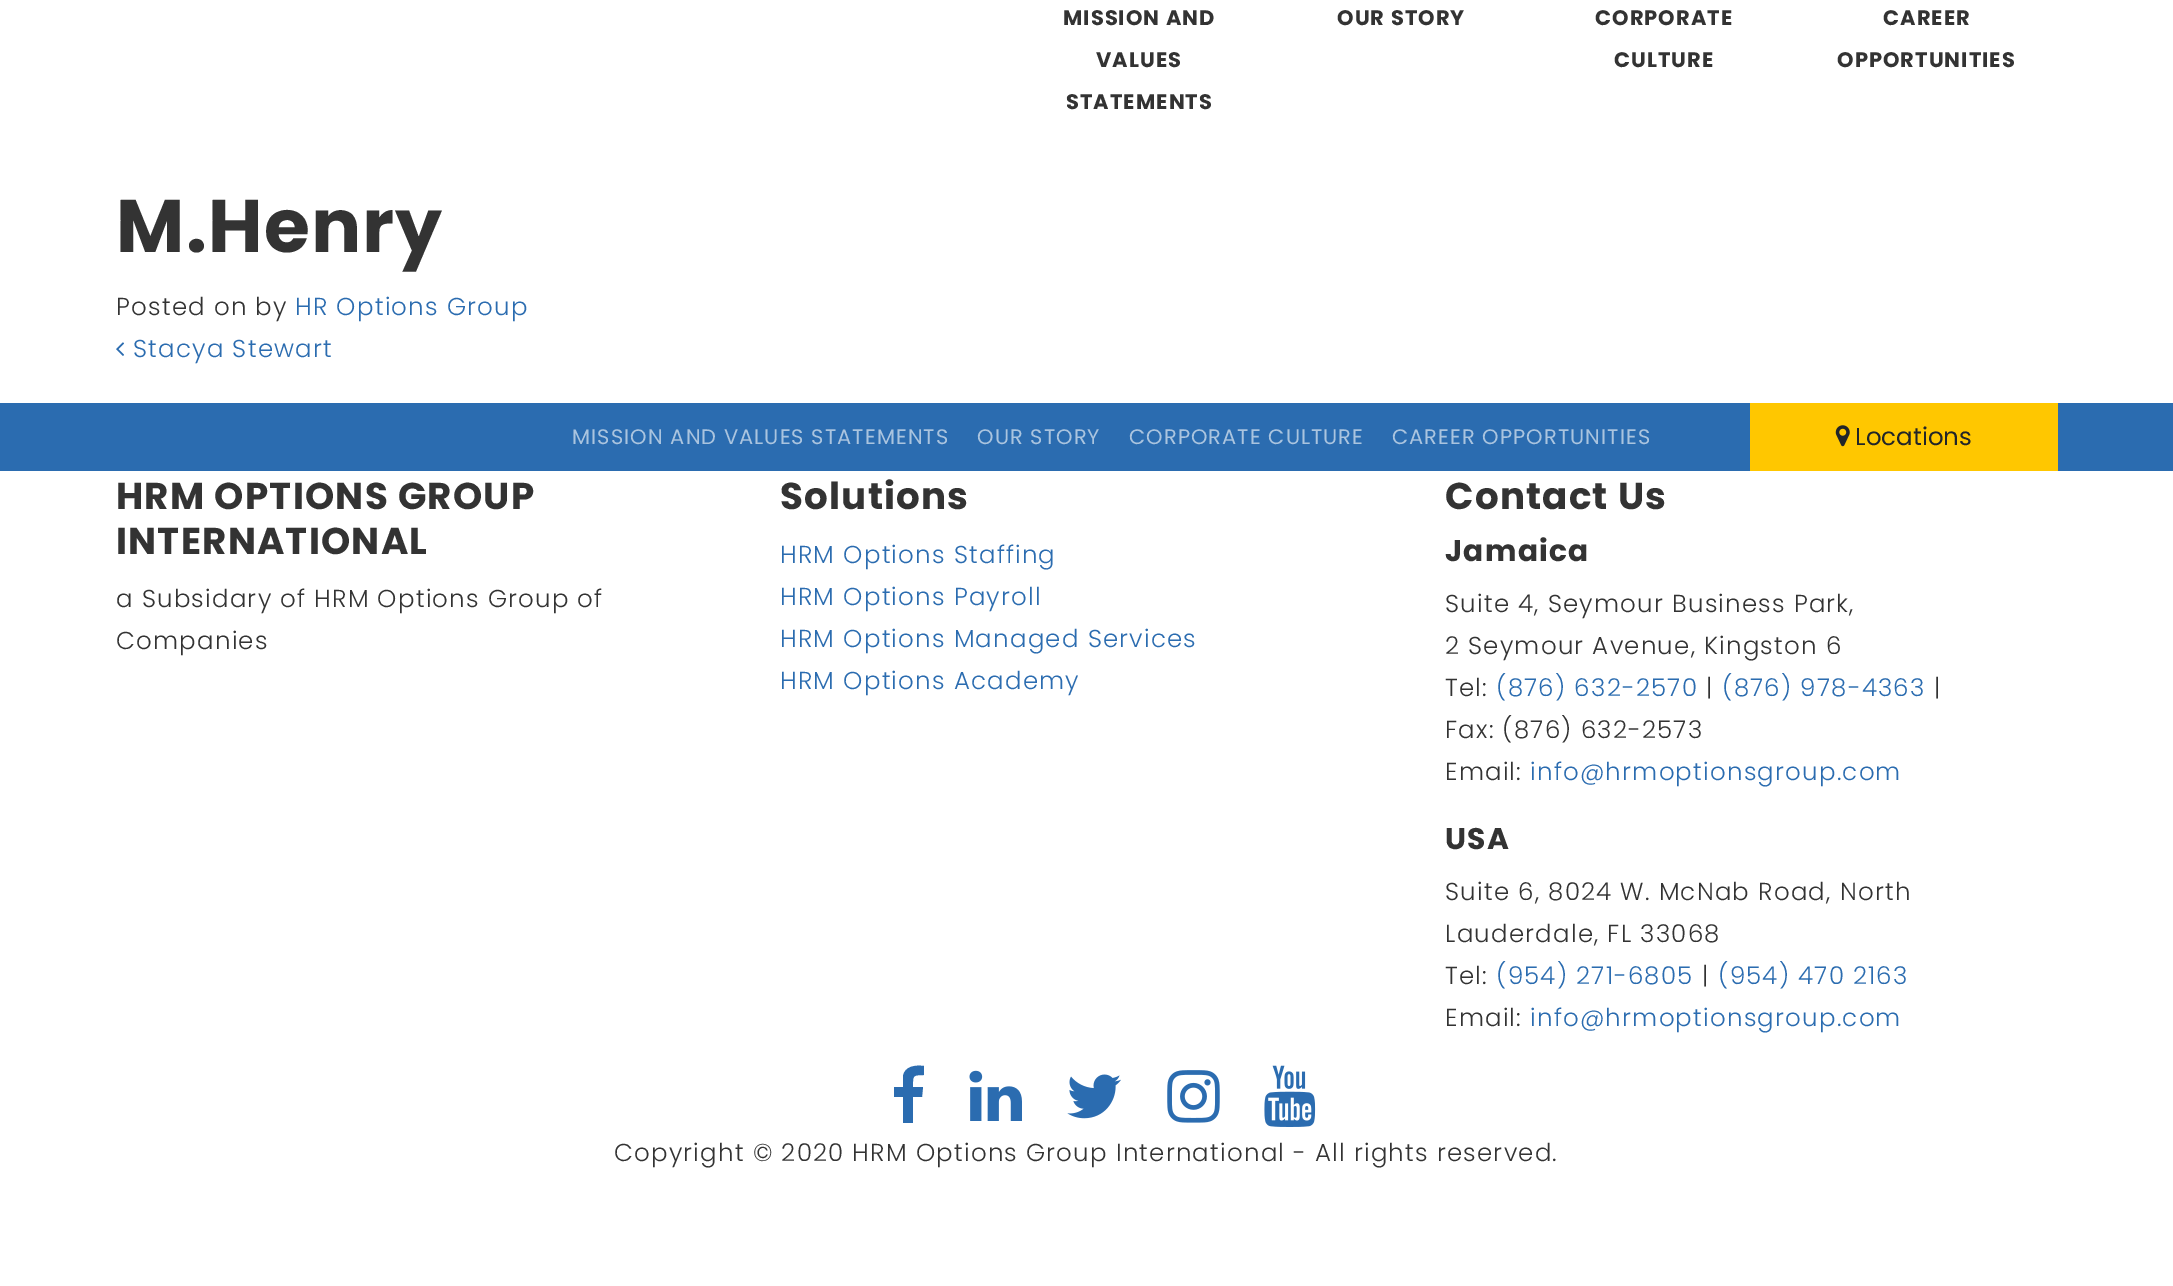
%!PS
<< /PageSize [2173 1286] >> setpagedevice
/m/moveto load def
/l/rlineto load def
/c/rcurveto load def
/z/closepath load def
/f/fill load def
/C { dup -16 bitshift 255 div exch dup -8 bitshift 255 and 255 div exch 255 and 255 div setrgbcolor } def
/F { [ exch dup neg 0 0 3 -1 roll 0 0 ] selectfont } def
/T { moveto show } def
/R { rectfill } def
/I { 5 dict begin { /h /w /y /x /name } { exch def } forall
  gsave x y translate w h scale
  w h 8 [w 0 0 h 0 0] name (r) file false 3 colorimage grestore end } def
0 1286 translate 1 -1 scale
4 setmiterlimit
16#FFFFFF C
0 0 2173 1286 R
/Poppins-Bold 21 F
16#333333 C
1063 25 m 1.05 0 (MISSION AND) ashow
1096 67 m 1.05 0 (VALUES) ashow
1066 109 m 1.05 0 (STATEMENTS) ashow
1337 25 m 1.05 0 (OUR STORY) ashow
1595 25 m 1.05 0 (CORPORATE) ashow
1614 67 m 1.05 0 (CULTURE) ashow
1883 25 m 1.05 0 (CAREER) ashow
1837 67 m 1.05 0 (OPPORTUNITIES) ashow
/Poppins-Bold 74.5 F
116 252 m 1.22 0 (M.Henry) ashow
/Poppins-Light 24.5 F
116 315 m 1.22 0 (Posted on by) ashow
16#2B6CB0 C
295 315 m 1.22 0 (HR Options Group) ashow
(1.rgb) 116 342 8 14 I
133 357 m 1.22 0 (Stacya Stewart) ashow
0 403 2173 68 R
/Poppins-Regular 21 F
16#AAC4DF C
572 444 m 1.05 0 (MISSION AND VALUES STATEMENTS) ashow
977 444 m 1.05 0 (OUR STORY) ashow
1129 444 m 1.05 0 (CORPORATE CULTURE) ashow
1392 444 m 1.05 0 (CAREER OPPORTUNITIES) ashow
16#FFC700 C
1750 403 308 68 R
(2.rgb) 1835 425 15 22 I
/Poppins-Regular 24.5 F
16#212529 C
(Locations) 1855 445 T
/Poppins-Bold 37.25 F
16#333333 C
116 509 m 1.22 0 (HRM OPTIONS GROUP) ashow
116 554 m 1.22 0 (INTERNATIONAL) ashow
/Poppins-Light 24.5 F
116 607 m 1.22 0 (a Subsidary of HRM Options Group of) ashow
116 649 m 1.22 0 (Companies) ashow
/Poppins-Bold 37.25 F
780 509 m 1.22 0 (Solutions) ashow
/Poppins-Light 24.5 F
16#2B6CB0 C
780 563 m 1.22 0 (HRM Options Staffing) ashow
780 605 m 1.22 0 (HRM Options Payroll) ashow
780 647 m 1.22 0 (HRM Options Managed Services) ashow
780 689 m 1.22 0 (HRM Options Academy) ashow
/Poppins-Bold 37.25 F
16#333333 C
1445 509 m 1.22 0 (Contact Us) ashow
/Poppins-Bold 29.75 F
1445 561 m 1.22 0 (Jamaica) ashow
/Poppins-Light 24.5 F
1445 612 m 1.22 0 (Suite 4, Seymour Business Park,) ashow
1445 654 m 1.22 0 (2 Seymour Avenue, Kingston 6) ashow
1445 696 m 1.22 0 (Tel:) ashow
16#2B6CB0 C
1496 696 m 1.22 0 (\(876\) 632-2570) ashow
16#333333 C
1706 696 m 1.22 0 (|) ashow
16#2B6CB0 C
1722 696 m 1.22 0 (\(876\) 978-4363) ashow
16#333333 C
1934 696 m 1.22 0 (|) ashow
1445 738 m 1.22 0 (Fax: \(876\) 632-2573) ashow
1445 780 m 1.22 0 (Email:) ashow
16#2B6CB0 C
1530 780 m 1.22 0 (info@hrmoptionsgroup.com) ashow
/Poppins-Bold 29.75 F
16#333333 C
1445 849 m 1.22 0 (USA) ashow
/Poppins-Light 24.5 F
1445 900 m 1.22 0 (Suite 6, 8024 W. McNab Road, North) ashow
1445 942 m 1.22 0 (Lauderdale, FL 33068) ashow
1445 984 m 1.22 0 (Tel:) ashow
16#2B6CB0 C
1496 984 m 1.22 0 (\(954\) 271-6805) ashow
16#333333 C
1702 984 m 1.22 0 (|) ashow
16#2B6CB0 C
1718 984 m 1.22 0 (\(954\) 470 2163) ashow
16#333333 C
1445 1026 m 1.22 0 (Email:) ashow
16#2B6CB0 C
1530 1026 m 1.22 0 (info@hrmoptionsgroup.com) ashow
924 1066 m -9 -1 -19 0 -21 10 c 0 11 l -9 0 l 0 10 l 9 0 l 0 26 l 10 0 l 0 -26 l 9 0 l 1 -10 l -10 0 l 0 -11 -1 -12 11 -12 c z f
(3.rgb) 969 1070 53 51 I
(4.rgb) 1067 1074 54 45 I
(5.rgb) 1167 1070 53 53 I
(6.rgb) 1264 1065 52 62 I
16#333333 C
614 1161 m 1.22 0 (Copyright © 2020 HRM Options Group International - All rights reserved.) ashow
showpage
